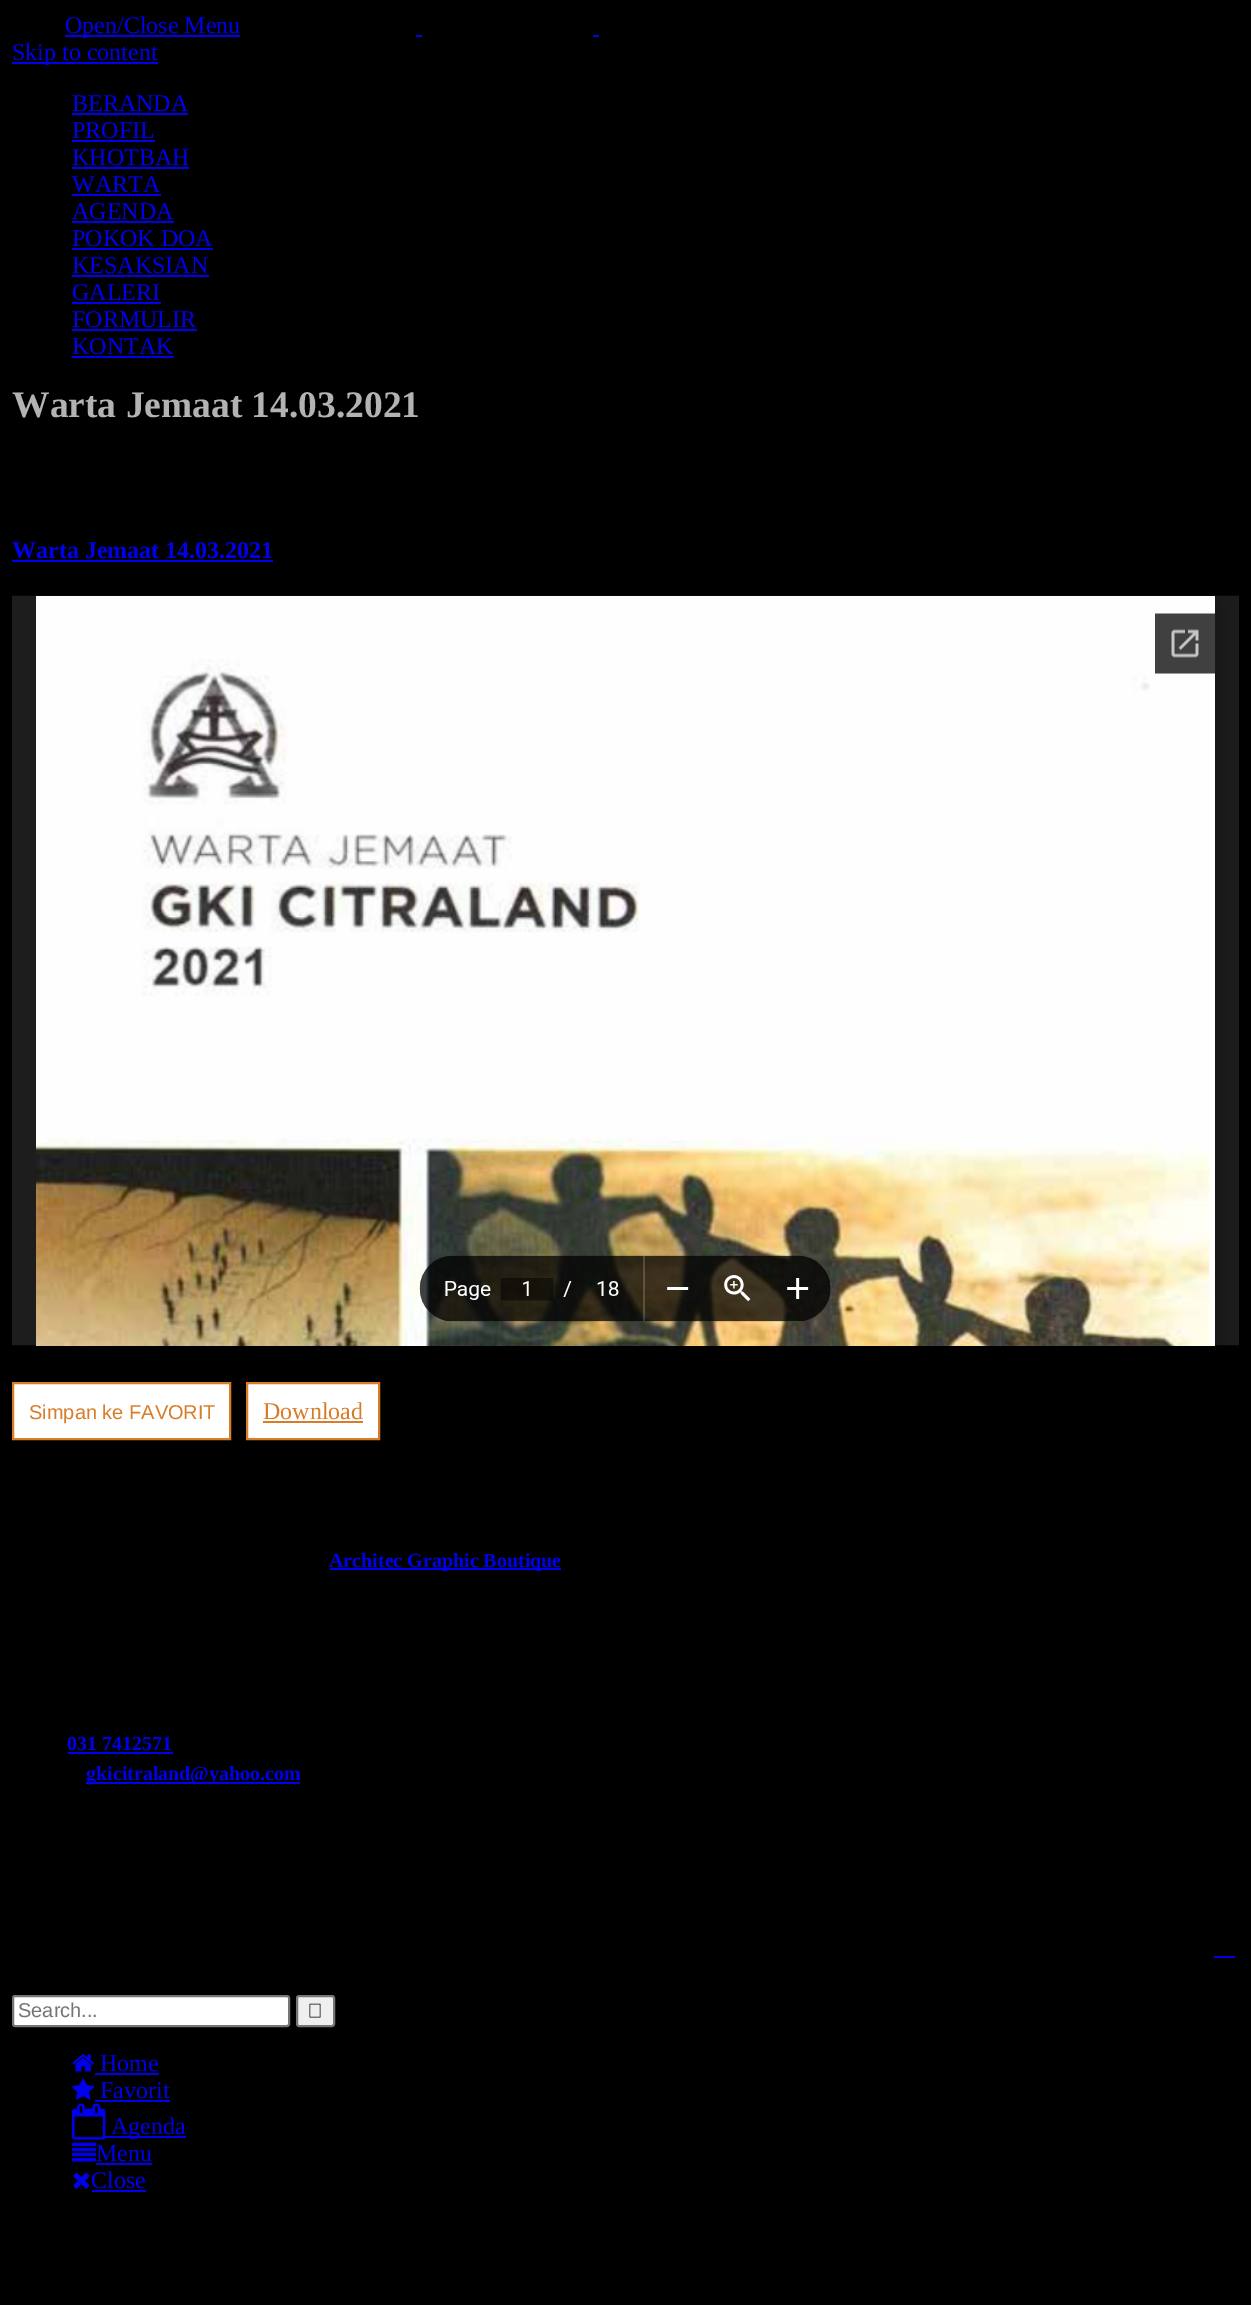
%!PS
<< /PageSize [1251 2305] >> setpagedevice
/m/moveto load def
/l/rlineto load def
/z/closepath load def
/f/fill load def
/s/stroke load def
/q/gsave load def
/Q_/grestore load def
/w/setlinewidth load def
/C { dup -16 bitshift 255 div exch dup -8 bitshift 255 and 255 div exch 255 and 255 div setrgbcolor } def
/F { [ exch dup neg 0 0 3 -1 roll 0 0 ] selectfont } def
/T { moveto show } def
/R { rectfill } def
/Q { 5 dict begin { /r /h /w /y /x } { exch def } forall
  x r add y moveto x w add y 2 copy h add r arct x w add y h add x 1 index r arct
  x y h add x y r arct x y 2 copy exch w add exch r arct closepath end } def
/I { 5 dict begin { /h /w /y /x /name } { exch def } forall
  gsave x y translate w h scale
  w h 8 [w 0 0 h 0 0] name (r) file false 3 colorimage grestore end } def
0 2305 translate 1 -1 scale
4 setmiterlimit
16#000000 C
0 0 1251 2305 R
16#0000EE C
65 35 175 2 R
/LiberationSerif-Regular 24 F
(Open/Close Menu) 65 33 T
416 35 6 2 R
593 35 6 2 R
12 62 146 2 R
(Skip to content) 12 60 T
(BERANDA) 72 111 T
72 113 116 2 R
(PROFIL) 72 138 T
72 140 83 2 R
(KHOTBAH) 72 165 T
72 167 117 2 R
(WARTA) 72 192 T
72 194 89 2 R
(AGENDA) 72 219 T
72 221 102 2 R
(POKOK DOA) 72 246 T
72 248 141 2 R
(KESAKSIAN) 72 273 T
72 275 137 2 R
(GALERI) 72 300 T
72 302 89 2 R
(FORMULIR) 72 327 T
72 329 125 2 R
(KONTAK) 72 354 T
72 356 102 2 R
/LiberationSerif-Bold 37.5 F
16#B3B3B3 C
(Warta Jemaat 14.03.2021) 12 417 T
/LiberationSerif-Bold 24 F
16#0000EE C
(Warta Jemaat 14.03.2021) 12 558 T
12 560 261 2 R
(1.rgb) 12 595 1227 751 I
16#FFFFFF C
13 1383 m 217 0 l 0 56 l -217 0 l z q f Q_
16#D97C28 C
2 w
s
/LiberationSans-Regular 20 F
(Simpan ke FAVORIT) 29 1419 T
16#FFFFFF C
247 1383 m 132 0 l 0 56 l -132 0 l z q f Q_
16#D97C28 C
s
/LiberationSerif-Regular 24 F
(Download) 263 1419 T
263 1421 100 2 R
16#0000EE C
330 1568 231 2 R
/LiberationSerif-Bold 20 F
(Architec Graphic Boutique) 329 1567 T
(031 7412571) 67 1750 T
68 1752 105 2 R
86 1782 214 2 R
(gkicitraland@yahoo.com) 86 1780 T
1214 1956 21 2 R
16#FFFFFF C
13 1996 276 30 2 Q q f Q_
16#767676 C
s
/LiberationSans-Regular 20 F
16#757575 C
(Search...) 18 2017 T
16#EFEFEF C
297 1996 37 30 2 Q q f Q_
16#767676 C
s
(2.rgb) 309 2003 12 15 I
(3.rgb) 72 2054 22 18 I
/LiberationSerif-Regular 24 F
16#0000EE C
(Home) 100 2071 T
95 2073 64 2 R
(4.rgb) 72 2078 23 22 I
(Favorit) 100 2098 T
95 2100 75 2 R
(5.rgb) 72 2103 34 37 I
105 2136 81 2 R
(Agenda) 111 2134 T
(6.rgb) 72 2142 24 20 I
(Menu) 96 2161 T
96 2163 56 2 R
(7.rgb) 73 2172 17 17 I
(Close) 91 2188 T
92 2190 54 2 R
showpage
